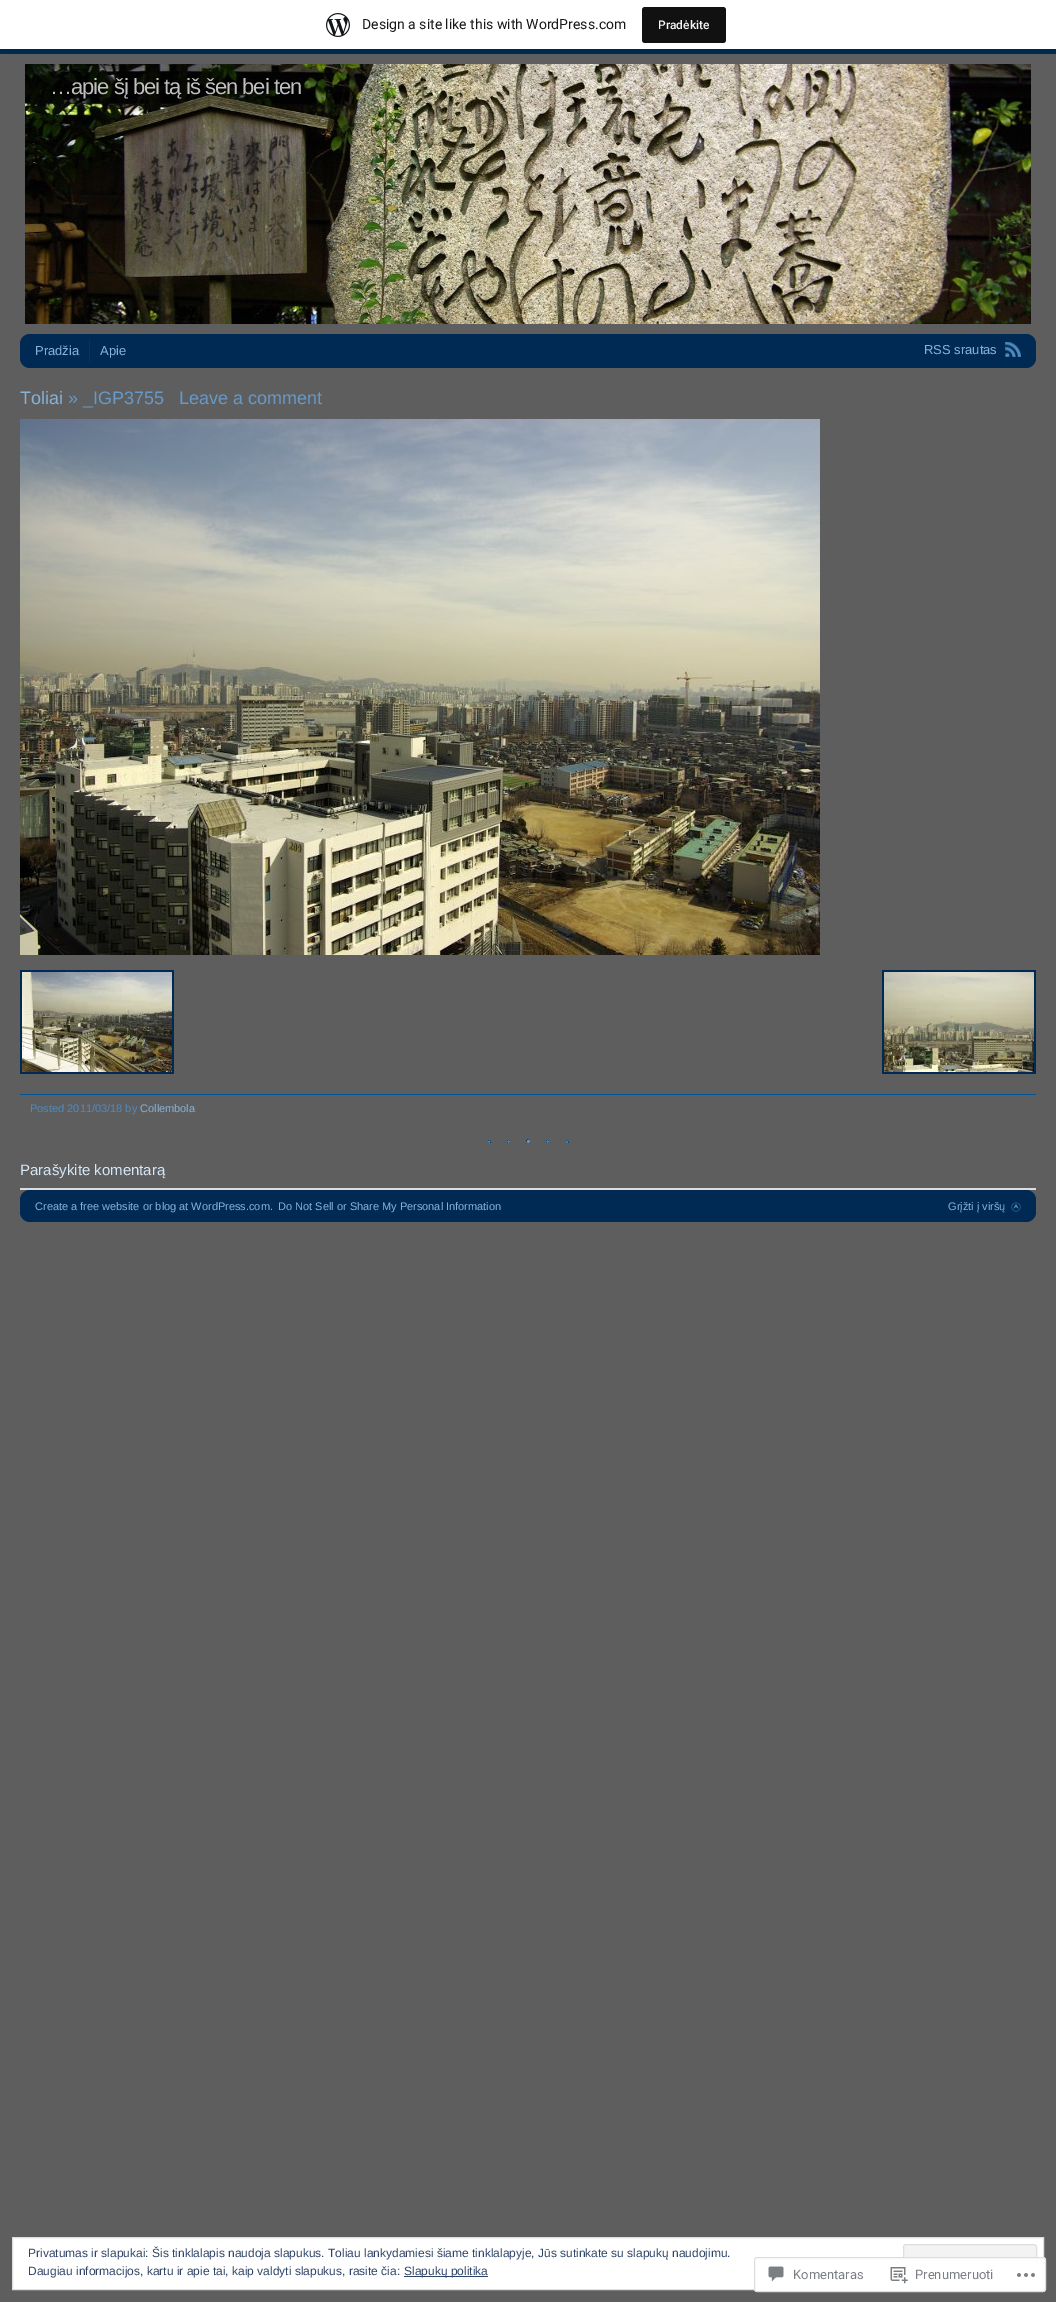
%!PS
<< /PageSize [1056 2302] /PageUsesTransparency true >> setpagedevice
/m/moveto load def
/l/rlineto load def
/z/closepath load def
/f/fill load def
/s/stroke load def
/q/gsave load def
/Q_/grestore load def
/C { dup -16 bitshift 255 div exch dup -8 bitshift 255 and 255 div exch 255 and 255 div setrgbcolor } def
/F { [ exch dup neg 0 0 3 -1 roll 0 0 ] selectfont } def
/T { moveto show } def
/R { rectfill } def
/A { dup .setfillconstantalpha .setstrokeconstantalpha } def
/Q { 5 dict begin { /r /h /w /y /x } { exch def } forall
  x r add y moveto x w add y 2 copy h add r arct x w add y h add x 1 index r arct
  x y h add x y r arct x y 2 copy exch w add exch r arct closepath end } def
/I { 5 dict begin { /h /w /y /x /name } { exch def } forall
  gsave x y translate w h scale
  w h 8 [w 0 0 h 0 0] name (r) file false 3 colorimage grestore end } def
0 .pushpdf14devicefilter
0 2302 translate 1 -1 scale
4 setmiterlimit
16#5E5E5E C
0 0 1056 2302 R
16#002A53 C
0 49 1056 5 R
0.08 A
16#000000 C
1 49 m 0 3 l 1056 0 l 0 -49 l -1 0 l 0 46 l z f
1 A
16#FFFFFF C
0 0 1056 49 R
(1.rgb) 326 13 24 24 I
/Roboto-Regular 14 F
16#171717 C
(Design a site like this with WordPress.com) 362 29 T
16#111111 C
642 7 84 36 3 Q f
/Roboto-Medium 12 F
16#F6F7F7 C
(Pradėkite) 658 29 T
(2.rgb) 25 64 1006 260 I
/LiberationSans-Regular 22 F
16#BFBFBF C
50 94 m -1 0 (…apie šį bei tą iš šen bei ten) ashow
16#002A53 C
20 334 1016 34 10 Q f
16#00355F C
89 339 1 24 R
/LiberationSans-Regular 13 F
16#87B2D8 C
(Pradžia) 35 355 T
(Apie) 100 355 T
(RSS srautas) 924 354 T
(3.rgb) 1005 342 16 15 I
/LiberationSans-Regular 18 F
(Toliai) 20 404 T
16#6799C8 C
(» _IGP3755) 68 404 T
(Leave a comment) 179 404 T
(4.rgb) 20 419 800 536 I
16#002A53 C
20 970 154 104 R
(5.rgb) 22 972 150 100 I
882 970 154 104 R
(6.rgb) 884 972 150 100 I
(7.rgb) 488 1139 81 4 I
16#005595 C
20 1094 1016 1 R
/LiberationSans-Regular 11 F
16#4E8ABE C
(Posted 2011/03/18 by) 30 1112 T
16#87B2D8 C
(Collembola) 140 1112 T
/LiberationSans-Regular 15 F
16#D4E7F7 C
(Parašykite komentarą) 20 1175 T
16#DCDCDE C
20 1188 1016 2 R
16#002A53 C
20 1190 1016 32 10 Q f
/LiberationSans-Regular 11 F
16#87B2D8 C
(Create a free website or blog at WordPress.com.) 35 1210 T
(Do Not Sell or Share My Personal Information) 278 1210 T
(Grįžti į viršų) 948 1210 T
(8.rgb) 1011 1202 10 10 I
16#FFFFFF C
12.5 2237.5 m 1031 0 l 0 52 l -1031 0 l z q f Q_
16#DEDEDE C
s
/LiberationSans-Regular 12 F
16#2E4467 C
(Privatumas ir slapukai: Šis tinklalapis naudoja slapukus. Toliau lankydamiesi šiame tinklalapyje, Jūs sutinkate su slapukų naudojimu.) 28 2257 T
16#F3F3F3 C
903.5 2244.5 133 38 2.5 Q q f Q_
16#DEDEDE C
s
16#2E4467 C
(Daugiau informacijos, kartu ir apie tai, kaip valdyti slapukus, rasite čia:) 28 2275 T
404 2276 84 1 R
(Slapukų politika) 404 2275 T
0.98 A
16#FFFFFF C
754 2257 292 35 3 Q f
16#DCDCDE C
754.5 2257.5 291 34 2.5 Q s
1 A
(9.rgb) 768 2266 16 16 I
/Roboto-Regular 13 F
16#7B7F85 C
(Komentaras) 793 2279 T
(10.rgb) 890 2267 18 17 I
(Prenumeruoti) 915 2279 T
(11.rgb) 1017 2273 18 4 I
.poppdf14devicefilter showpage
